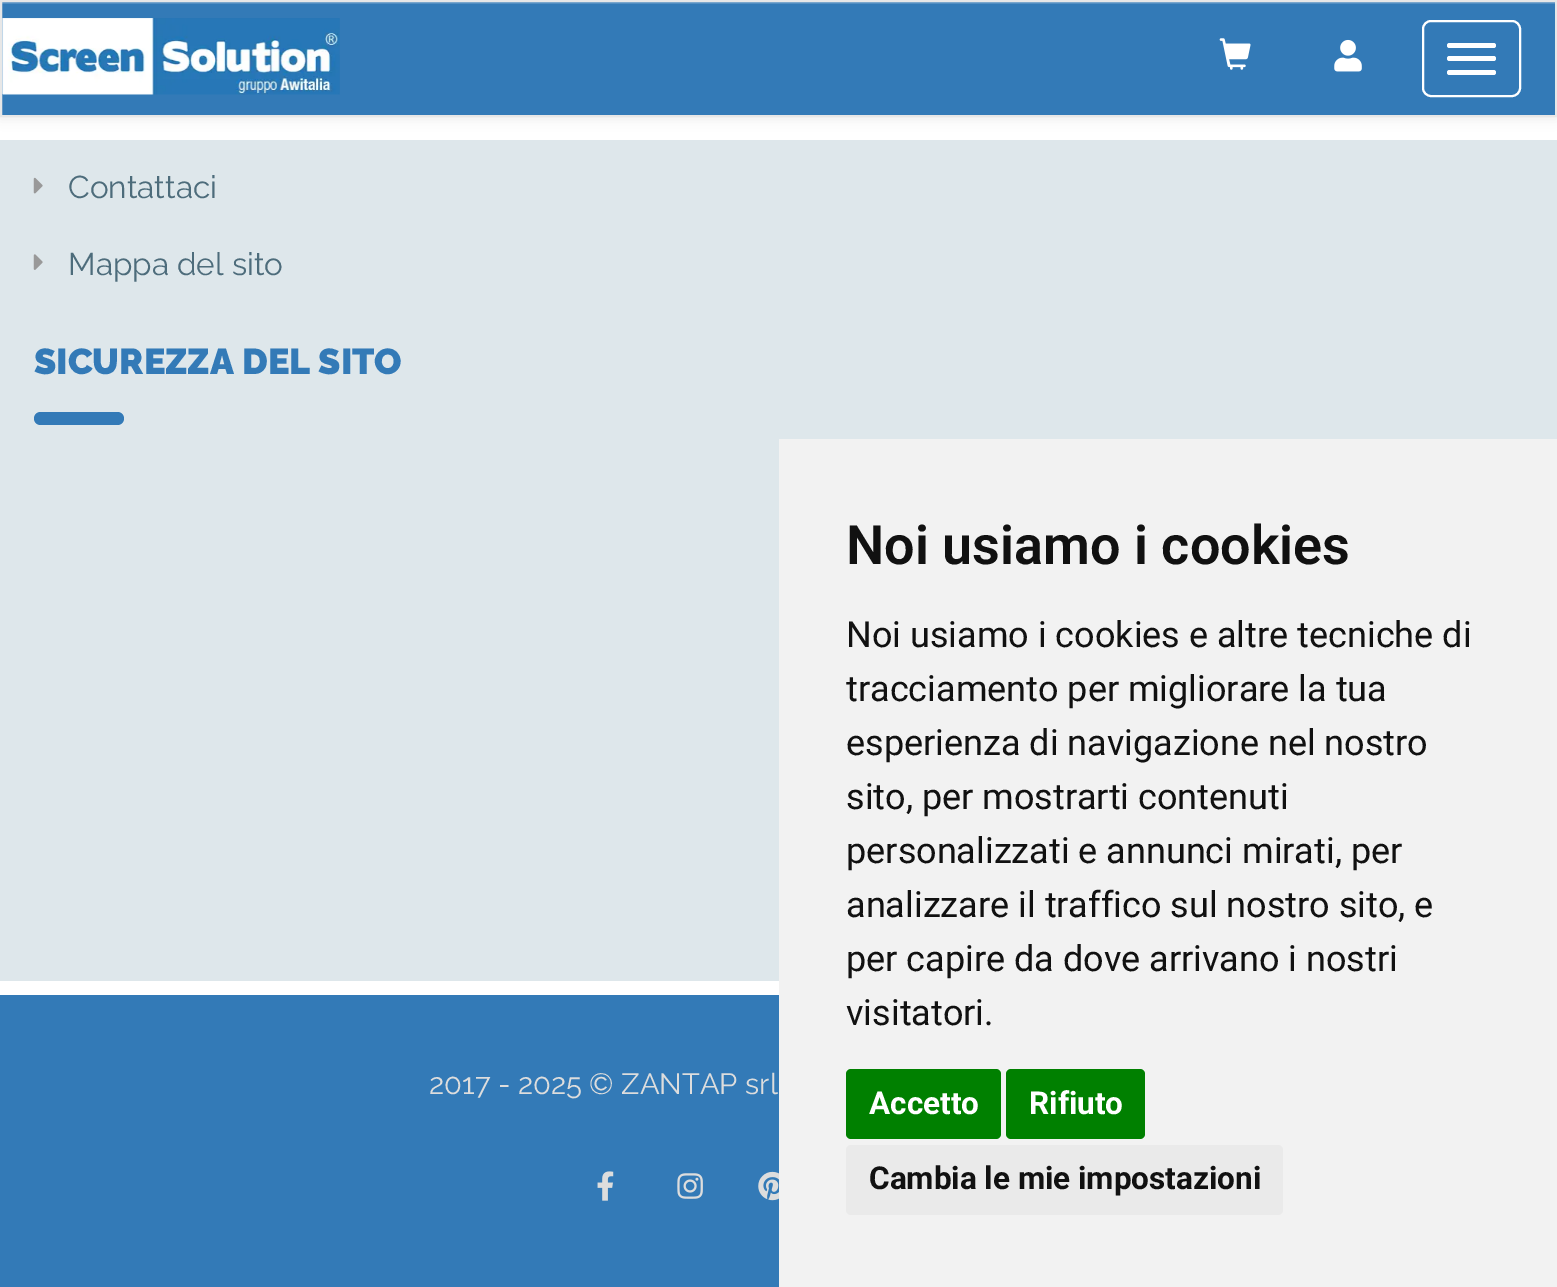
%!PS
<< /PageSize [1557 1287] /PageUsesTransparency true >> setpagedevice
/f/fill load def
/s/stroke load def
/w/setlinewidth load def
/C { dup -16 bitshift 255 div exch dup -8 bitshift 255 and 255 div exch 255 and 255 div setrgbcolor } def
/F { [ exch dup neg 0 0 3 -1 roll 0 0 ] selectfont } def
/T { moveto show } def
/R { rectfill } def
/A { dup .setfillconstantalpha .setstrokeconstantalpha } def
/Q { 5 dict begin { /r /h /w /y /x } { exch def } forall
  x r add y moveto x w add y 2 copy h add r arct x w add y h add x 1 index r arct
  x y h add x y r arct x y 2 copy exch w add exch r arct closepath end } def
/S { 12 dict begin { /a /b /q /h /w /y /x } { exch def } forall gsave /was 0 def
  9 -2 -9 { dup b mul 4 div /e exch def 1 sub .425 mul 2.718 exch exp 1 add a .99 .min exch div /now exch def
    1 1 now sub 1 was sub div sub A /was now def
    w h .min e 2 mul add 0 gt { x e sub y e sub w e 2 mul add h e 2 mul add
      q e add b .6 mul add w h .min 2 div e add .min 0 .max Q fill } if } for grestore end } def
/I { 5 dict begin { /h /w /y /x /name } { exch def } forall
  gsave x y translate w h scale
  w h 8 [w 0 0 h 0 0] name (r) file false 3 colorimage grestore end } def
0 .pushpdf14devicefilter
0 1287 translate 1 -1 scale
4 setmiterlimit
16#DEE7EB C
0 0 1557 1287 R
16#FFFFFF C
0 117 1557 23 R
16#000000 C
0 2 1557 117 0 5.5 .07 S
16#337AB7 C
2 4 1553 111 R
16#528EC2 C
2 2 1553 2 R
16#E7E7E7 C
2 w
1 1 1555 115 rectstroke
(1.rgb) 2 18 338 77 I
(2.rgb) 1219 38 32 32 I
(3.rgb) 1334 39 28 33 I
16#FFFFFF C
1423 21 97 75 8 Q s
1447 43 49 5 2.5 Q f
1447 56 49 5 2.5 Q f
1447 70 49 5 2.5 Q f
(4.rgb) 33 177 10 17 I
/Raleway-Regular 31.5 F
16#4D6C7B C
(Contattaci) 68 198 T
(5.rgb) 33 254 10 16 I
(Mappa del sito) 68 275 T
/Raleway-Black 36 F
16#337AB7 C
(SICUREZZA DEL SITO) 34 374 T
34 412 90 13 6.5 Q f
0 995 779 292 R
16#FFFFFF C
0 981 779 14 R
/Raleway-Regular 29.25 F
16#DDDDDD C
(2017 - 2025 © ZANTAP srl) 429 1094 T
(6.rgb) 597 1171 17 30 I
(7.rgb) 677 1173 26 26 I
(8.rgb) 758 1171 21 30 I
16#F2F2F2 C
779 439 778 848 R
/Roboto-SemiBold 54 F
16#111111 C
(Noi usiamo i cookies) 846 564 T
/Roboto-Regular 36 F
(Noi usiamo i cookies e altre tecniche di) 846 647 T
(tracciamento per migliorare la tua) 846 701 T
(esperienza di navigazione nel nostro) 846 755 T
(sito, per mostrarti contenuti) 846 809 T
(personalizzati e annunci mirati, per) 846 863 T
(analizzare il traffico sul nostro sito, e) 846 917 T
(per capire da dove arrivano i nostri) 846 971 T
(visitatori.) 846 1025 T
16#008000 C
846 1069 155 70 5 Q f
/Roboto-Bold 31.5 F
16#FFFFFF C
(Accetto) 869 1114 T
16#008000 C
1006 1069 139 70 5 Q f
16#FFFFFF C
(Rifiuto) 1029 1114 T
16#EAEAEA C
846 1145 437 70 5 Q f
16#111111 C
(Cambia le mie impostazioni) 869 1189 T
.poppdf14devicefilter showpage
